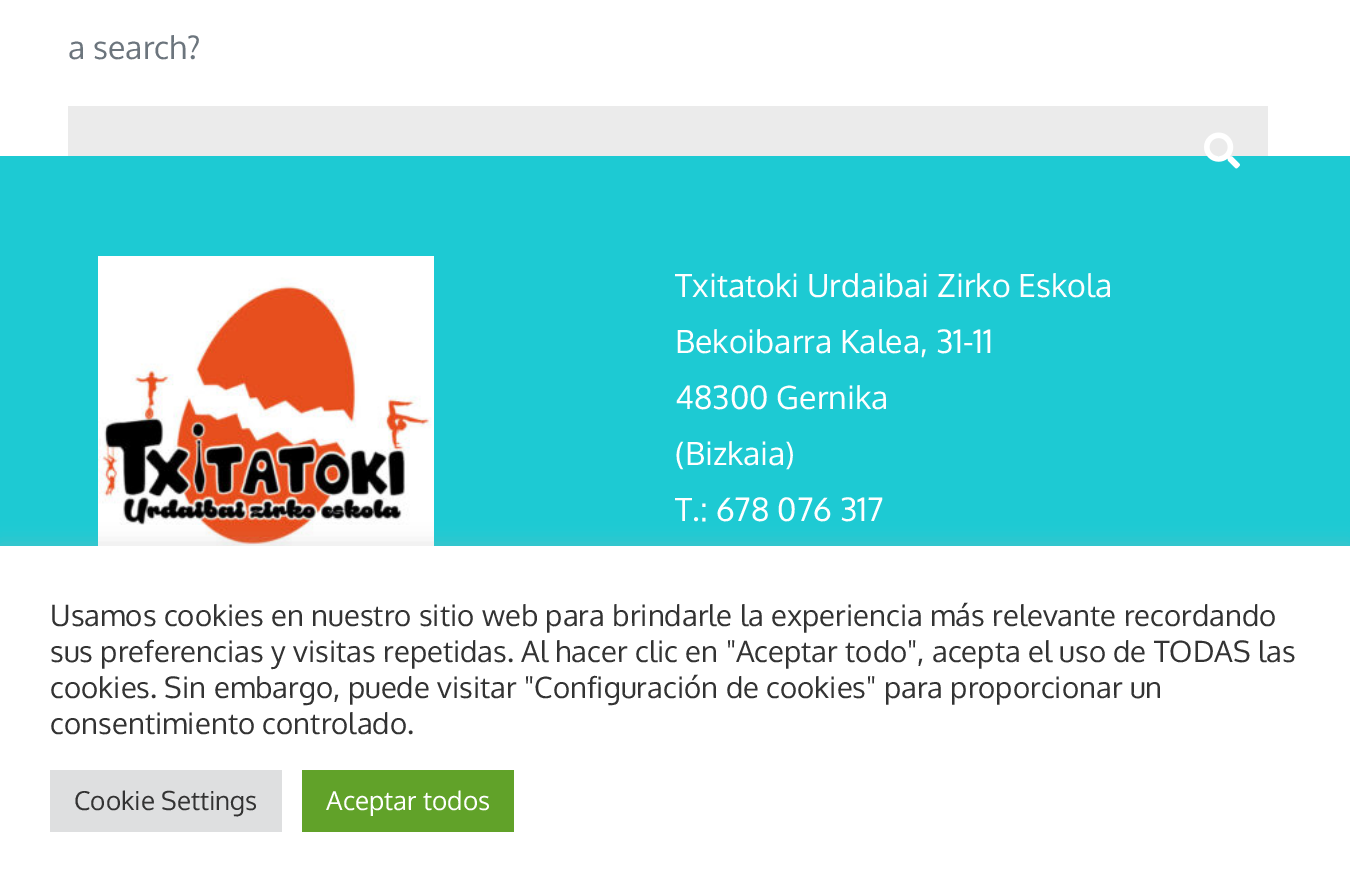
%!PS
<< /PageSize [1350 892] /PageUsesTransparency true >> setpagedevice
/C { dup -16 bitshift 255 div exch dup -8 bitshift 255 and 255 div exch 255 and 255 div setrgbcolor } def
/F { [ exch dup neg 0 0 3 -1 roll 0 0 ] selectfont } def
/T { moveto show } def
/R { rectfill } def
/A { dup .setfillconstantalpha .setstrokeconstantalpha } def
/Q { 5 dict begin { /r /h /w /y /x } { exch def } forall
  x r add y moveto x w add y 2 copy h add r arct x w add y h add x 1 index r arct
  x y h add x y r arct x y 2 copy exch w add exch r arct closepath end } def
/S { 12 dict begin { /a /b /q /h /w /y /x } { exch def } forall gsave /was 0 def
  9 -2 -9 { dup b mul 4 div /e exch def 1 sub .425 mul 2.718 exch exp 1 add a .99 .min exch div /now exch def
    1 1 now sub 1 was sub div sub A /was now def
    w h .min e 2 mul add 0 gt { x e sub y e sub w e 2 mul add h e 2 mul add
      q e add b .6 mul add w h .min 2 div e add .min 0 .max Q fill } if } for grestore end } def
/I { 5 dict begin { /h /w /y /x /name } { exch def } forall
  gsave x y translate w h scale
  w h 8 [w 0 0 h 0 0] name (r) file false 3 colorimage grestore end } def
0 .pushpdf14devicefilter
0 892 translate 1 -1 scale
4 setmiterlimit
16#FFFFFF C
0 0 1350 892 R
/Oxygen-Regular 32 F
16#6C757D C
(a search?) 68 59 T
16#EBEBEB C
68 106 1200 50 R
16#1DCAD3 C
0 156 1350 390 R
(1.rgb) 1204 132 36 37 I
(2.rgb) 98 256 336 290 I
16#FFFFFF C
(Txitatoki Urdaibai Zirko Eskola) 675 297 T
(Bekoibarra Kalea, 31-11) 675 353 T
(48300 Gernika) 675 409 T
(\(Bizkaia\)) 675 465 T
(T.: 678 076 317) 675 521 T
16#ACABAB C
0 544 1350 346 0 10 .3 S
16#FFFFFF C
0 546 1350 346 R
/Oxygen-Regular 29.35 F
16#333333 C
(Usamos cookies en nuestro sitio web para brindarle la experiencia más relevante recordando) 50 626 T
(sus preferencias y visitas repetidas. Al hacer clic en "Aceptar todo", acepta el uso de TODAS las) 50 662 T
(cookies. Sin embargo, puede visitar "Configuración de cookies" para proporcionar un) 50 698 T
(consentimiento controlado.) 50 734 T
16#DEDFE0 C
50 770 232 62 R
/Oxygen-Regular 26 F
16#333333 C
(Cookie Settings) 74 810 T
16#61A229 C
302 770 212 62 R
16#FFFFFF C
(Aceptar todos) 326 810 T
.poppdf14devicefilter showpage
